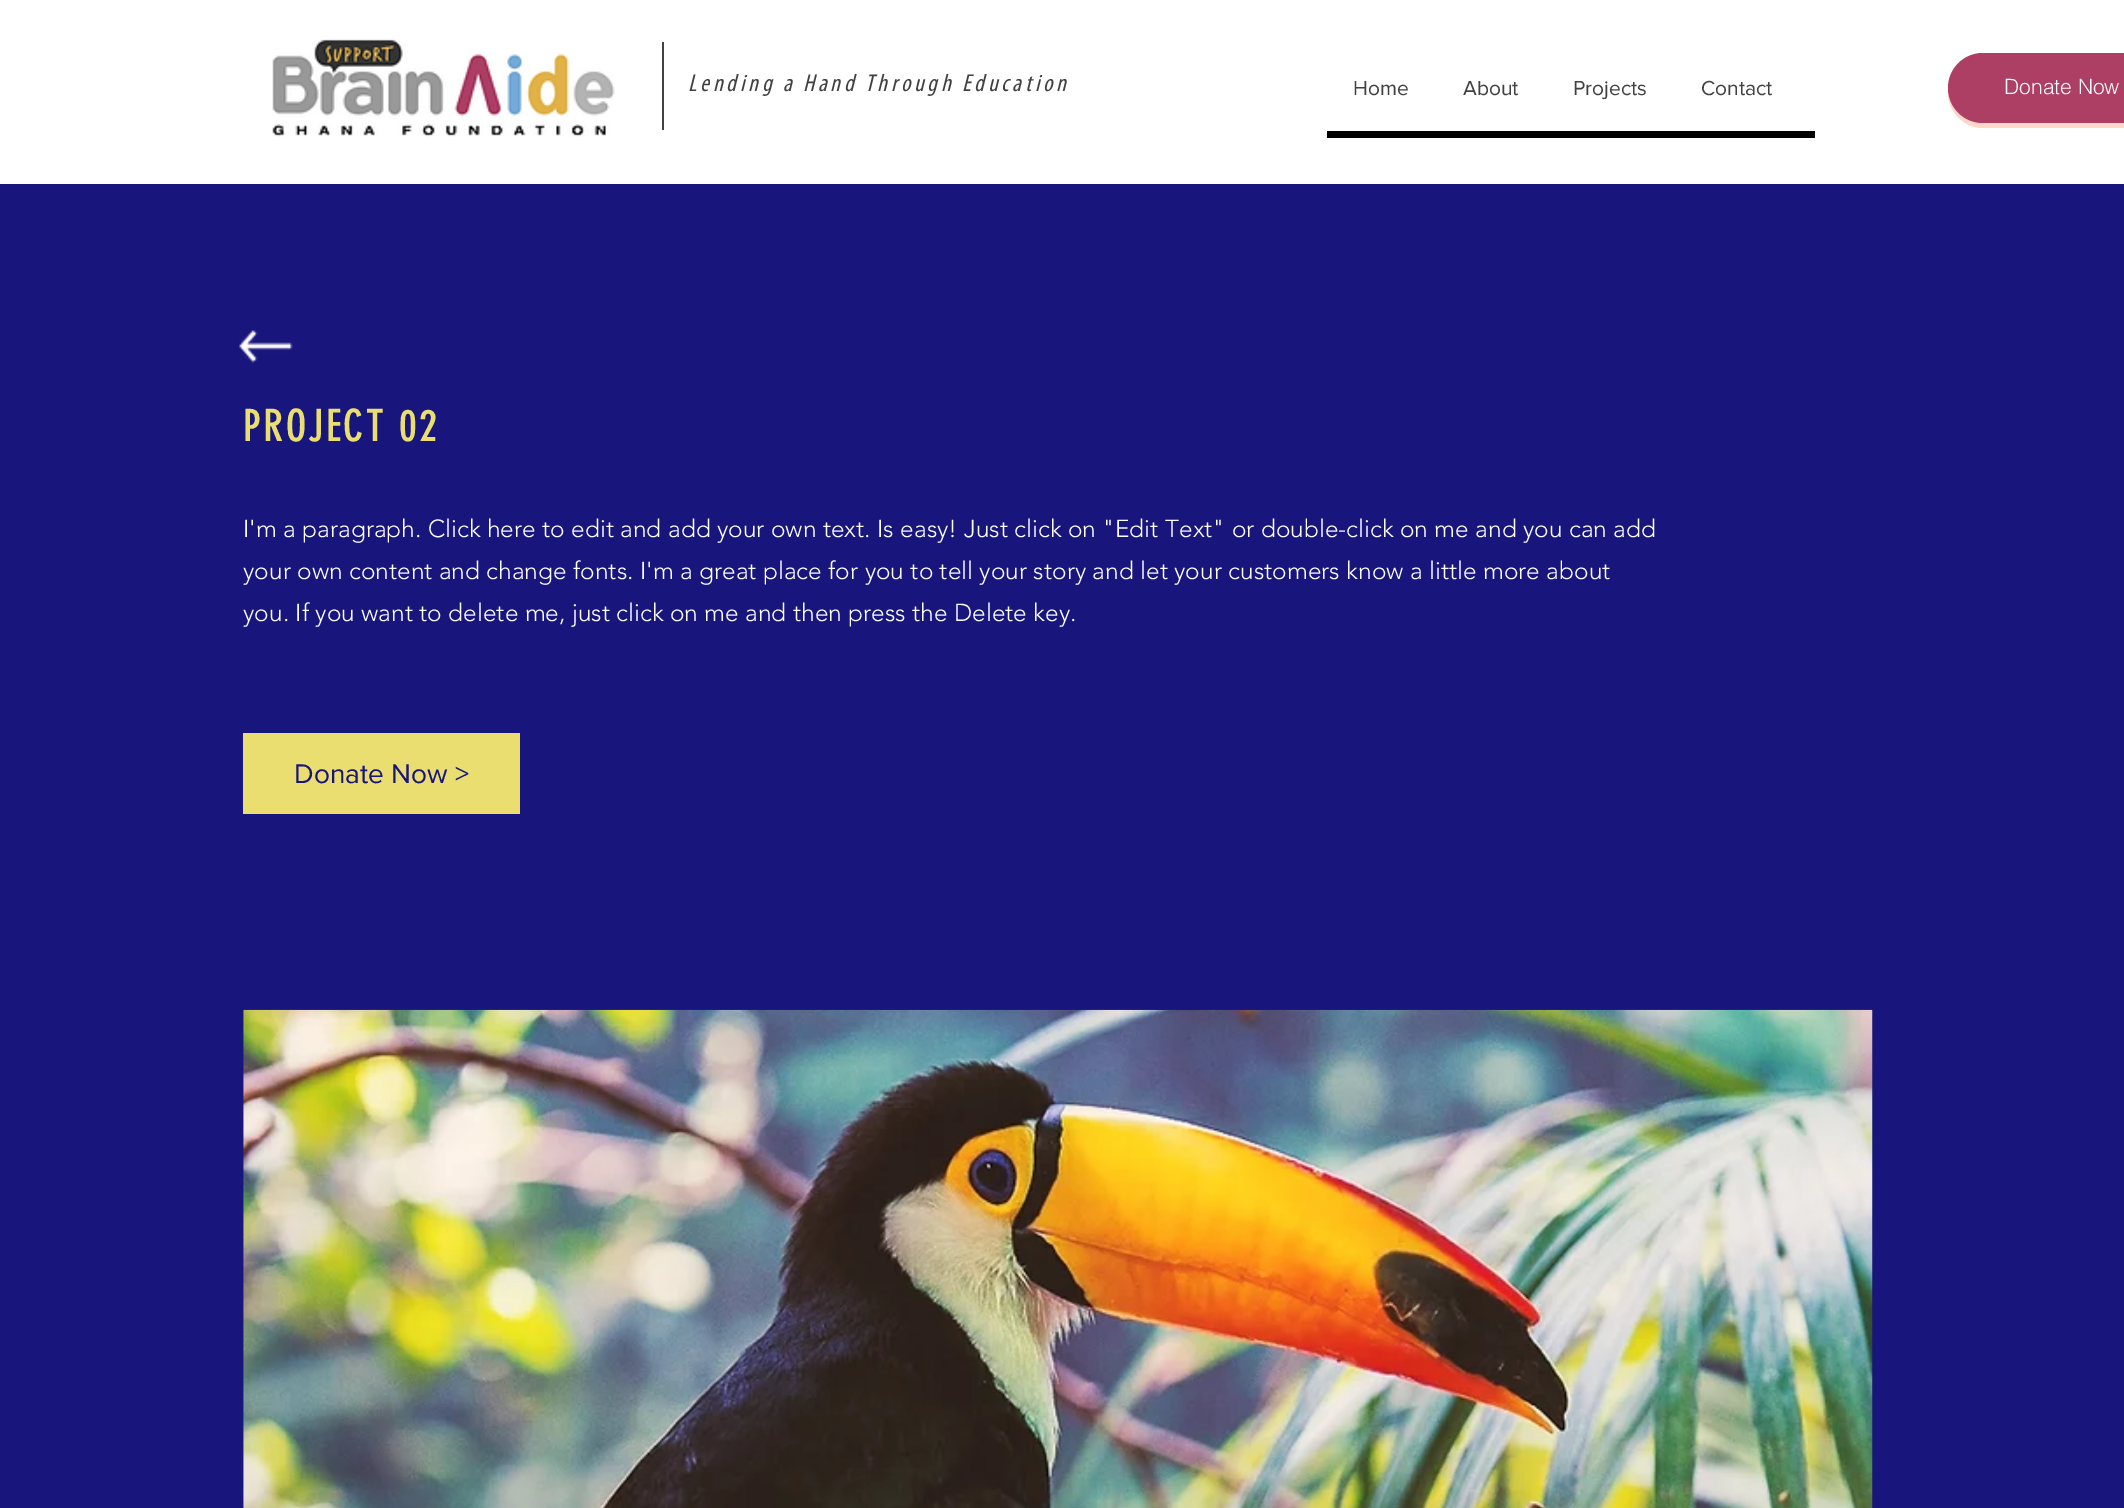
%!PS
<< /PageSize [2124 1508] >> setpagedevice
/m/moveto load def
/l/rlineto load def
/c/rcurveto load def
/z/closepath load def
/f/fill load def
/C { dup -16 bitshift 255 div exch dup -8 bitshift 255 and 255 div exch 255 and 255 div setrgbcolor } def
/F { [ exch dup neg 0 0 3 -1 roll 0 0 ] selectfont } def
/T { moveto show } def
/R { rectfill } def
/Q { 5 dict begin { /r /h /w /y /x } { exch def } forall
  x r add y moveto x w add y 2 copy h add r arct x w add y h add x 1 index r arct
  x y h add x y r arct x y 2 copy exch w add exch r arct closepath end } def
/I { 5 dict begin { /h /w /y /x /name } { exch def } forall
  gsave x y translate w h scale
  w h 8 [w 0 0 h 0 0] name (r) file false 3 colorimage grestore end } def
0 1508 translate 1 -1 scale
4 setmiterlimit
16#18157C C
0 0 2124 1508 R
16#FFFFFF C
0 0 2124 184 R
(1.rgb) 272 39 343 98 I
16#424242 C
662 42 2 88 R
/Myriad-Italic 24.5 F
16#414141 C
688 91 m 3.7 0 (Lending a Hand Through Education) ashow
16#000000 C
1327 131 m 0 7 l 488 0 l 0 -87 l 0 80 l z f
/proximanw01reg-Regular 21 F
16#414141 C
(Home) 1353 95 T
(About) 1463 95 T
(Projects) 1573 95 T
(Contact) 1701 95 T
16#FFD7C8 C
1948 92 m 0 1 l 0 19 16 35 35 35 c 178 0 l 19 0 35 -16 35 -35 c 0 -1 l -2 17 -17 30 -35 30 c -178 0 l -18 0 -33 -13 -35 -30 c z f
16#AD3E64 C
1948 53 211 70 35 Q f
/helvetica-Light 21 F
16#FFFFFF C
(Donate Now) 2004 94 T
(2.rgb) 239 330 54 33 I
/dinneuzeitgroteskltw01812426-Regular 43.75 F
16#EADE71 C
243 441 m 2.25 0 (PROJECT 02) ashow
/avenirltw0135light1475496-Light 24.5 F
16#FFFFFF C
(I'm a paragraph. Click here to edit and add your own text. Is easy! Just click on "Edit Text" or double-click on me and you can add) 243 537 T
(your own content and change fonts. I'm a great place for you to tell your story and let your customers know a little more about) 243 579 T
(you. If you want to delete me, just click on me and then press the Delete key.) 243 621 T
16#EADE71 C
243 733 277 81 R
/proximanw01reg-Regular 28 F
16#18157C C
(Donate Now >) 294 783 T
(3.rgb) 243 1009 1630 499 I
showpage
